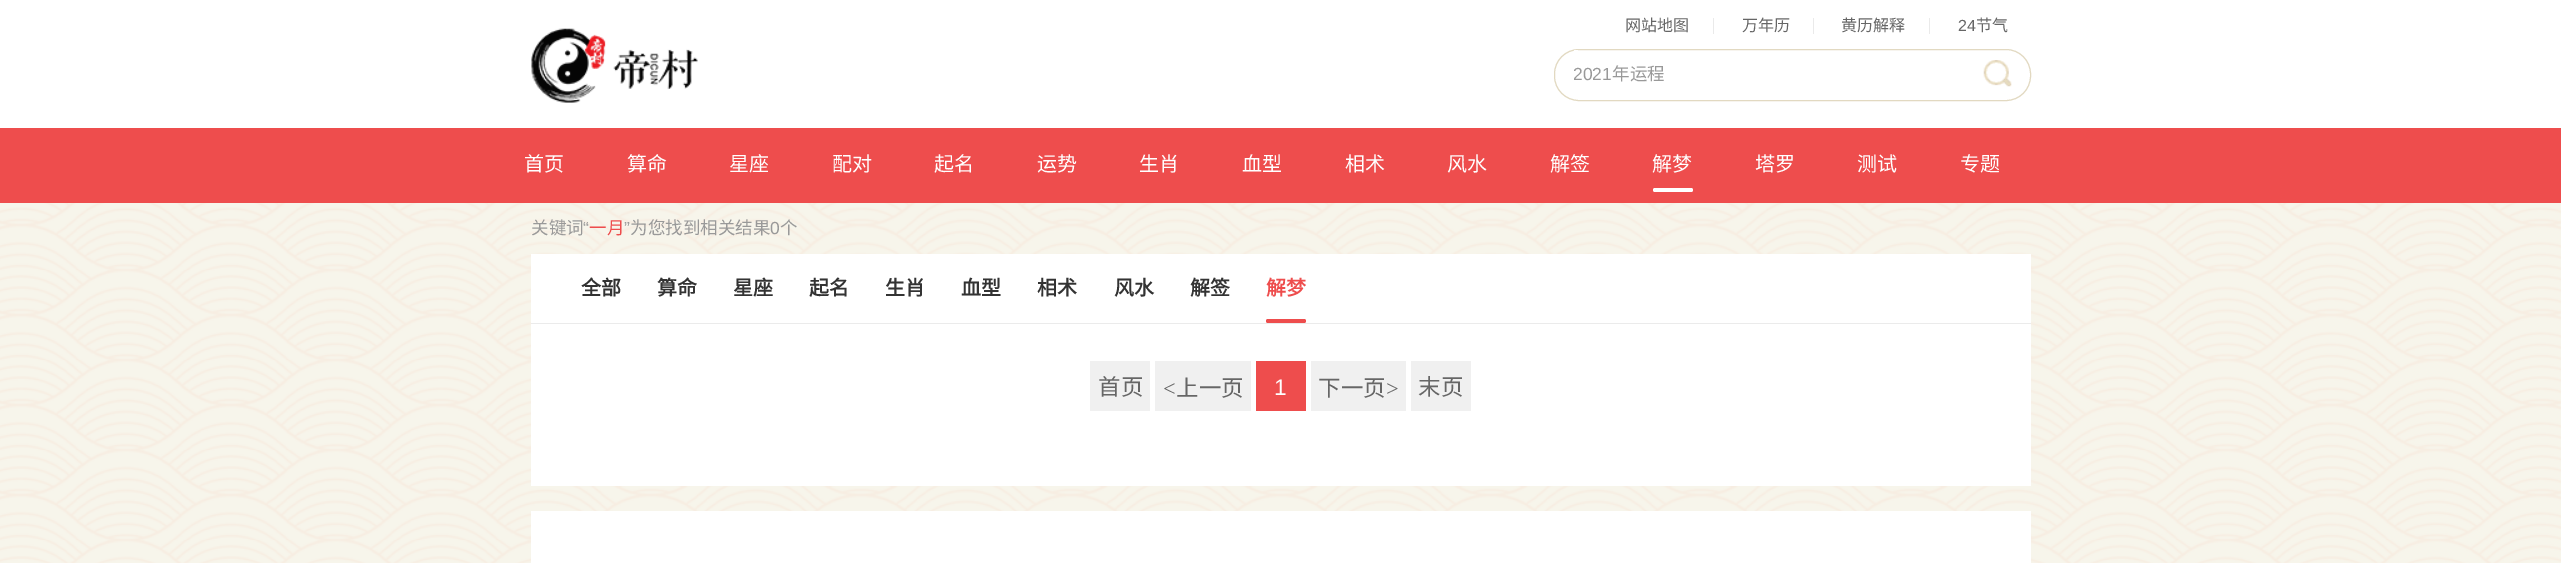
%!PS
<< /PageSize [2561 563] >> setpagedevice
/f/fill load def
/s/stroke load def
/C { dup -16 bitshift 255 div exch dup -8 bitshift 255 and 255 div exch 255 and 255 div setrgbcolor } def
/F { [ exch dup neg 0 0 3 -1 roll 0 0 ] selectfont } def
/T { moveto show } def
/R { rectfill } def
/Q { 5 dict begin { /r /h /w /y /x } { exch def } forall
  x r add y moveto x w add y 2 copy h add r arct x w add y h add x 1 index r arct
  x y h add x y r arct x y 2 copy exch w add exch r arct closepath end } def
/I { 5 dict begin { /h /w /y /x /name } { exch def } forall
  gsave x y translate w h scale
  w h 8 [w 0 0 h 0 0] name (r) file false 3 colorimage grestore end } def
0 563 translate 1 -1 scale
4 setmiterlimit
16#FFFFFF C
0 0 2561 563 R
(1.rgb) 0 203 2561 360 I
(2.rgb) 531 28 167 75 I
16#EAEAEA C
1713 18 1 16 R
/NotoSansCJKSC-Regular 16 F
16#666666 C
(网站地图) 1625 31 T
16#EAEAEA C
1813 18 1 16 R
16#666666 C
(万年历) 1742 31 T
16#EAEAEA C
1929 18 1 16 R
16#666666 C
(黄历解释) 1841 31 T
/LiberationSans-Regular 16 F
(24) 1958 31 T
/NotoSansCJKSC-Regular 16 F
(节气) 1976 31 T
16#E2D9C1 C
1554.5 49.5 476 51 24.5 Q s
16#FFFFFF C
1574 50 4 1 R
/LiberationSans-Regular 17.5 F
16#999999 C
(2021) 1573 80 T
/NotoSansCJKSC-Regular 17.5 F
(年运程) 1612 80 T
(3.rgb) 1983 60 29 27 I
16#EE4D4D C
0 128 2561 75 R
/NotoSansCJKSC-Regular 20 F
16#FFFFFF C
(首页) 524 171 T
(算命) 627 171 T
(星座) 729 171 T
(配对) 832 171 T
(起名) 934 171 T
(运势) 1037 171 T
(生肖) 1139 171 T
(血型) 1242 171 T
(相术) 1345 171 T
(风水) 1447 171 T
(解签) 1550 171 T
(解梦) 1652 171 T
1653 188 40 4 2 Q f
(塔罗) 1755 171 T
(测试) 1857 171 T
(专题) 1960 171 T
/NotoSansCJKSC-Regular 17.5 F
16#999999 C
(关键词) 531 234 T
/LiberationSans-Regular 17.5 F
(“) 583 234 T
/NotoSansCJKSC-Regular 17.5 F
16#EE4D4D C
(一月) 589 234 T
/LiberationSans-Regular 17.5 F
16#999999 C
(”) 624 234 T
/NotoSansCJKSC-Regular 17.5 F
(为您找到相关结果) 630 234 T
/LiberationSans-Regular 17.5 F
(0) 770 234 T
/NotoSansCJKSC-Regular 17.5 F
(个) 780 234 T
16#FFFFFF C
531 254 1500 232 R
16#EBEBEB C
531 323 1500 1 R
/NotoSansCJKSC-Bold 20 F
16#333333 C
(全部) 581 295 T
(算命) 657 295 T
(星座) 733 295 T
(起名) 809 295 T
(生肖) 885 295 T
(血型) 961 295 T
(相术) 1037 295 T
(风水) 1114 295 T
(解签) 1190 295 T
16#EE4D4D C
(解梦) 1266 295 T
1266 319 40 4 2 Q f
16#F0F0F0 C
1090 361 60 50 R
/NotoSansCJKSC-Regular 22.5 F
16#666666 C
(首页) 1098 395 T
16#F0F0F0 C
1155 361 96 50 R
/LiberationSerif-Regular 22.5 F
16#666666 C
(<) 1163 396 T
/NotoSansCJKSC-Regular 22.5 F
(上一页) 1176 396 T
16#EE4D4D C
1256 361 50 50 R
/LiberationSans-Regular 22.5 F
16#FFFFFF C
(1) 1274 395 T
16#F0F0F0 C
1311 361 95 50 R
/NotoSansCJKSC-Regular 22.5 F
16#666666 C
(下一页) 1318 396 T
/LiberationSerif-Regular 22.5 F
(>) 1386 396 T
16#F0F0F0 C
1411 361 60 50 R
/NotoSansCJKSC-Regular 22.5 F
16#666666 C
(末页) 1418 395 T
16#FFFFFF C
531 511 1500 52 R
showpage
